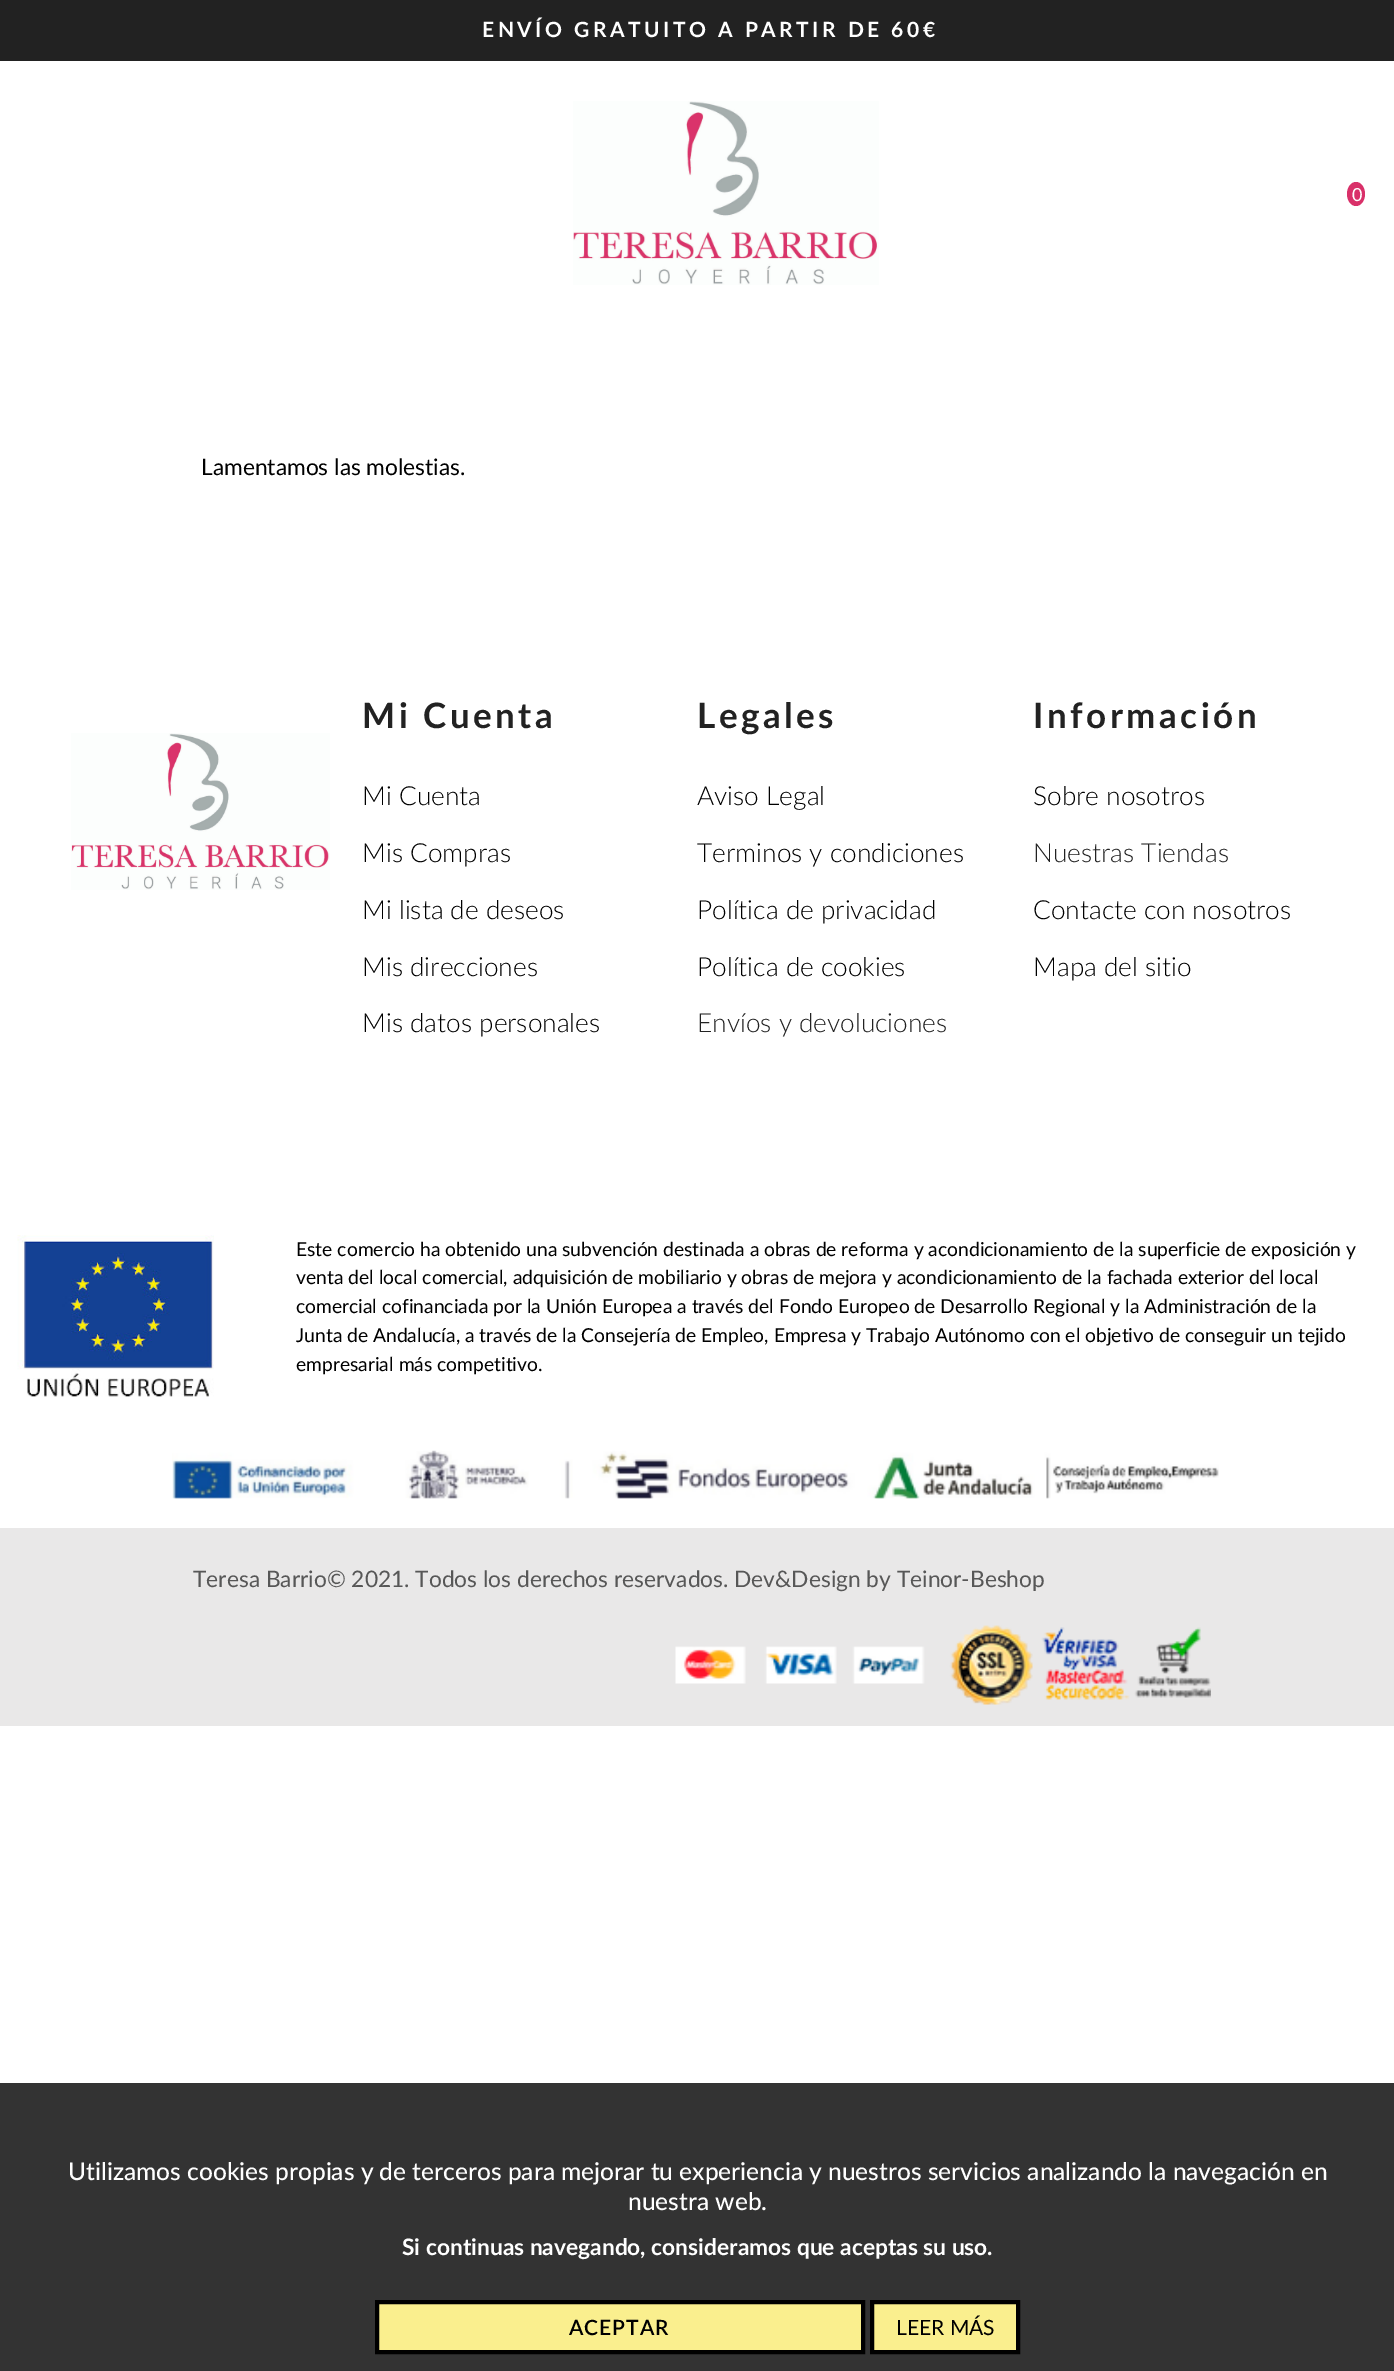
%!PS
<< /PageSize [1394 2371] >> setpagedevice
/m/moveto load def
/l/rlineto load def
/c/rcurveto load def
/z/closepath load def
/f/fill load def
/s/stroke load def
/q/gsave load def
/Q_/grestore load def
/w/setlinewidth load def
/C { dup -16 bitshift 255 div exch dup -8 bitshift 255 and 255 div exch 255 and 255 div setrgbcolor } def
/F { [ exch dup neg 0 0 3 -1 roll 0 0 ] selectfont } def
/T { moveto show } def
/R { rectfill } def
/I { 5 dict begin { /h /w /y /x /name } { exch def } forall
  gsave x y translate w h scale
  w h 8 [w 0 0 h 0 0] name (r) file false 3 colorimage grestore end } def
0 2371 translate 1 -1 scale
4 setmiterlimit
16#FFFFFF C
0 0 1394 2371 R
16#222222 C
0 0 1394 61 R
/Lato-Bold 21 F
16#FFFFFF C
482 37 m 3.5 0 (ENVÍO GRATUITO A PARTIR DE 60€) ashow
(1.rgb) 573 101 306 184 I
16#D93069 C
1356 182 m 5 0 9 5.5 9 12 c 0 6.5 -4 12 -9 12 c -5 0 -9 -5.5 -9 -12 c 0 -6.5 4 -12 9 -12 c z f
/Lato-Regular 18 F
16#FFFFFF C
(0) 1352 201 T
/Lato-Regular 22.75 F
16#000000 C
(Lamentamos las molestias.) 201 475 T
(2.rgb) 71 733 259 157 I
/Lato-Bold 35 F
16#222222 C
362 728 m 3.5 0 (Mi Cuenta) ashow
/Lato-Light 26.25 F
16#000000 C
(Mi Cuenta) 362 805 T
(Mis Compras) 362 862 T
(Mi lista de deseos) 362 919 T
(Mis direcciones) 362 976 T
(Mis datos personales) 362 1032 T
/Lato-Bold 35 F
16#222222 C
697 728 m 3.5 0 (Legales) ashow
/Lato-Light 26.25 F
16#000000 C
(Aviso Legal) 697 805 T
(Terminos y condiciones) 697 862 T
(Política de privacidad) 697 919 T
(Política de cookies) 697 976 T
16#222222 C
(Envíos y devoluciones) 697 1032 T
/Lato-Bold 35 F
1033 728 m 3.5 0 (Información) ashow
/Lato-Light 26.25 F
16#000000 C
(Sobre nosotros) 1033 805 T
16#222222 C
(Nuestras Tiendas) 1033 862 T
16#000000 C
(Contacte con nosotros) 1033 919 T
(Mapa del sitio) 1033 976 T
(3.rgb) 17 1235 197 162 I
/Lato-Regular 19.25 F
(Este comercio ha obtenido una subvención destinada a obras de reforma y acondicionamiento de la superficie de exposición y) 296 1256 T
(venta del local comercial, adquisición de mobiliario y obras de mejora y acondicionamiento de la fachada exterior del local) 296 1284 T
(comercial cofinanciada por la Unión Europea a través del Fondo Europeo de Desarrollo Regional y la Administración de la) 296 1313 T
(Junta de Andalucía, a través de la Consejería de Empleo, Empresa y Trabajo Autónomo con el objetivo de conseguir un tejido) 296 1342 T
(empresarial más competitivo.) 296 1371 T
(4.rgb) 172 1450 1047 49 I
16#E9E8E8 C
0 1528 1394 198 R
/Lato-Regular 22.75 F
16#575757 C
(Teresa Barrio© 2021. Todos los derechos reservados. Dev&Design by Teinor-Beshop) 193 1587 T
(5.rgb) 675 1625 536 80 I
16#333333 C
0 2083 1394 288 R
/Lato-Medium 24.5 F
16#FFFFFF C
(Utilizamos cookies propias y de terceros para mejorar tu experiencia y nuestros servicios analizando la navegación en) 68 2180 T
(nuestra web.) 628 2210 T
/Lato-Bold 22.75 F
(Si continuas navegando, consideramos que aceptas su uso.) 402 2255 T
16#FAEF8E C
377 2302 m 486 0 l 0 50 l -486 0 l z q f Q_
16#000000 C
4 w
s
/Lato-SemiBold 21 F
569 2335 m 1 0 (ACEPTAR) ashow
16#FAEF8E C
872 2302 m 146 0 l 0 50 l -146 0 l z q f Q_
16#000000 C
s
/Lato-Regular 21 F
(LEER MÁS) 896 2335 T
showpage
